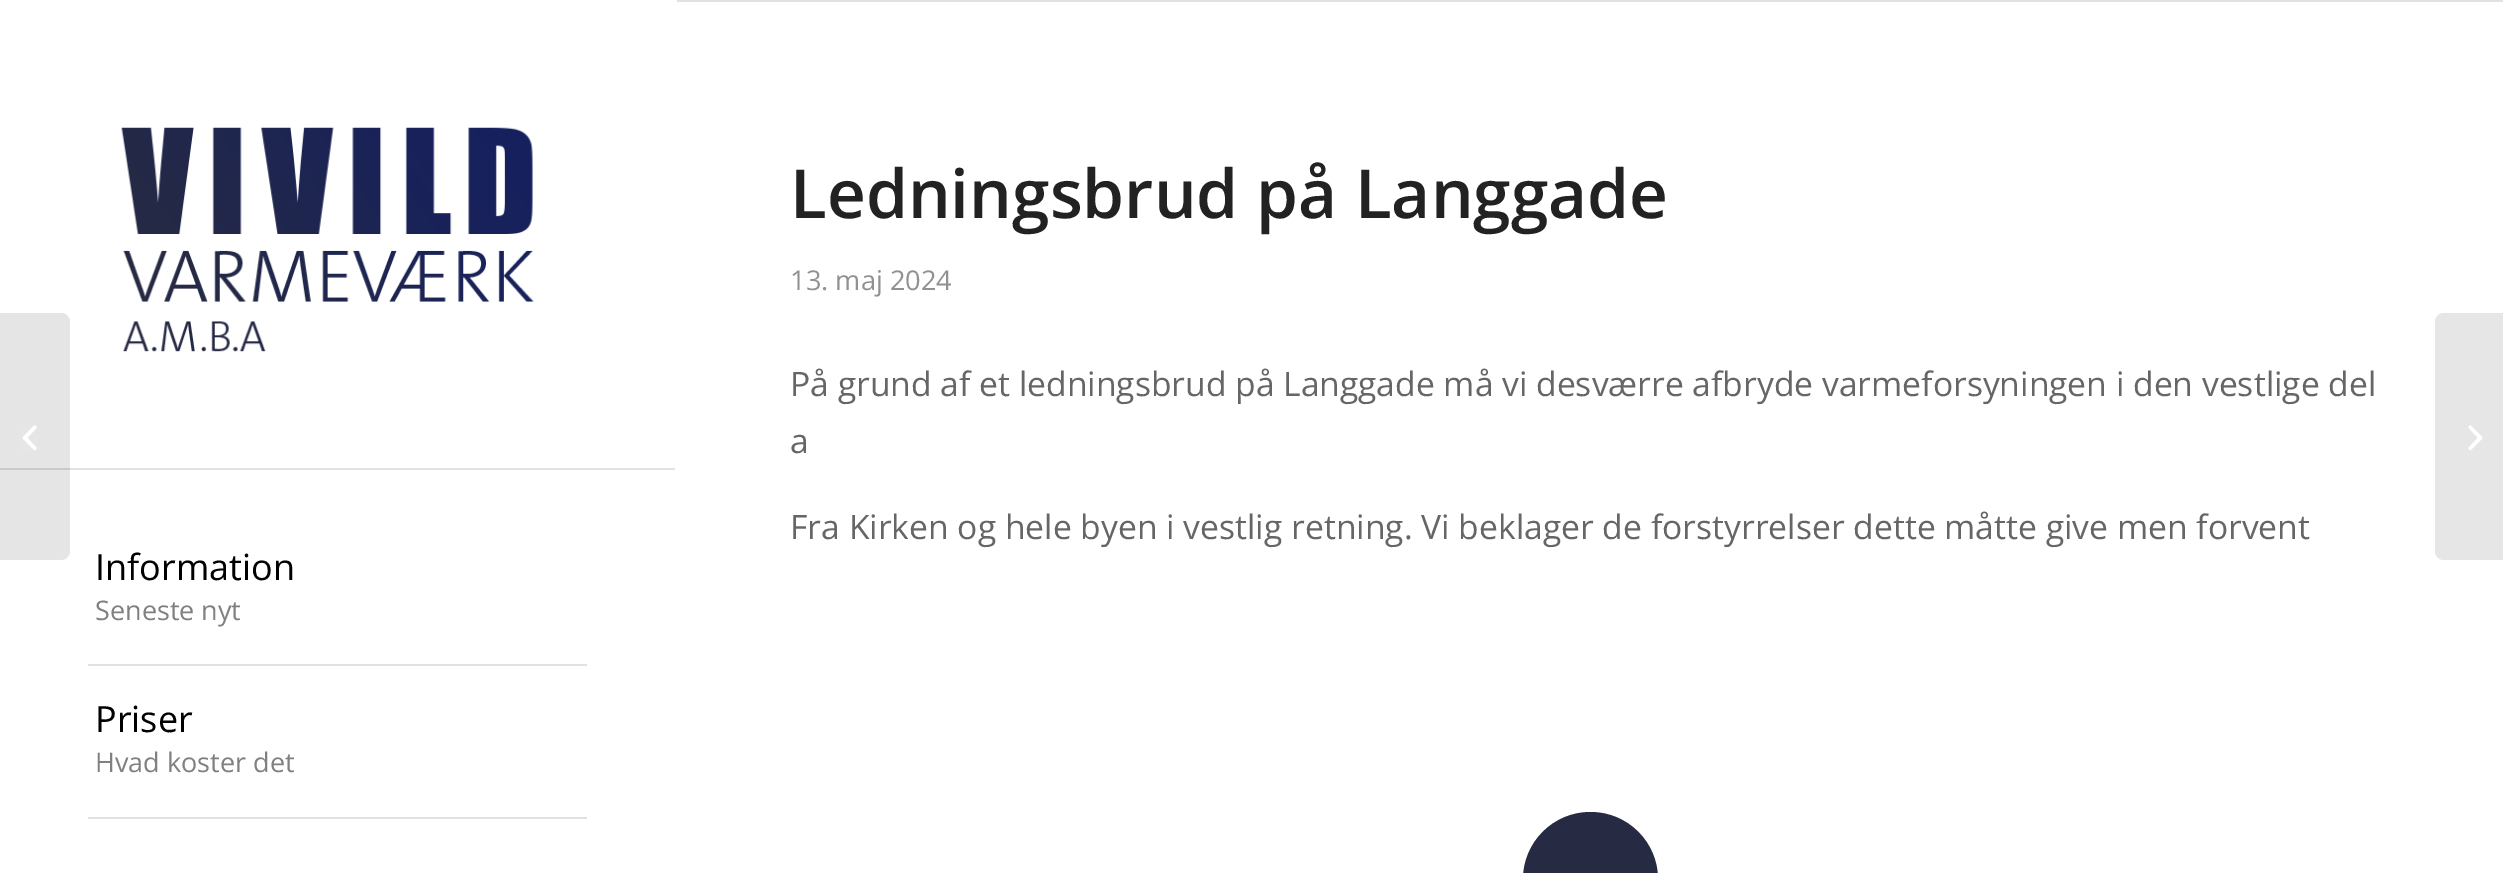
%!PS
<< /PageSize [2503 873] /PageUsesTransparency true >> setpagedevice
/m/moveto load def
/l/rlineto load def
/c/rcurveto load def
/z/closepath load def
/f/fill load def
/C { dup -16 bitshift 255 div exch dup -8 bitshift 255 and 255 div exch 255 and 255 div setrgbcolor } def
/F { [ exch dup neg 0 0 3 -1 roll 0 0 ] selectfont } def
/T { moveto show } def
/R { rectfill } def
/A { dup .setfillconstantalpha .setstrokeconstantalpha } def
/Q { 5 dict begin { /r /h /w /y /x } { exch def } forall
  x r add y moveto x w add y 2 copy h add r arct x w add y h add x 1 index r arct
  x y h add x y r arct x y 2 copy exch w add exch r arct closepath end } def
/I { 5 dict begin { /h /w /y /x /name } { exch def } forall
  gsave x y translate w h scale
  w h 8 [w 0 0 h 0 0] name (r) file false 3 colorimage grestore end } def
0 .pushpdf14devicefilter
0 873 translate 1 -1 scale
4 setmiterlimit
16#FFFFFF C
0 0 2503 873 R
16#E1E1E1 C
0 468 675 2 R
0.1 A
16#000000 C
0 313 m 61 0 l 5 0 9 4 9 9 c 0 229 l 0 5 -4 9 -9 9 c -61 0 l z f
1 A
(1.rgb) 22 425 15 26 I
16#E1E1E1 C
677 0 1826 2 R
/OpenSans-SemiBold 67.5 F
16#222222 C
(Ledningsbrud på Langgade) 790 218 T
/OpenSans-Regular 27.25 F
16#919191 C
(13. maj 2024) 790 290 T
/OpenSans-Regular 33.65 F
16#666666 C
(På grund af et ledningsbrud på Langgade må vi desværre afbryde varmeforsyningen i den vestlige del) 790 396 T
(a) 790 453 T
(Fra Kirken og hele byen i vestlig retning. Vi beklager de forstyrrelser dette måtte give men forvent) 790 539 T
16#262A42 C
1523 812 135 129 67.5 Q f
16#E6E6E6 C
2444 313 m 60 0 l 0 247 l -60 0 l -5 0 -9 -4 -9 -9 c 0 -229 l 0 -5 4 -9 9 -9 c z f
(2.rgb) 2468 425 15 26 I
(3.rgb) 121 127 413 225 I
16#E1E1E1 C
88 664 499 2 R
/OpenSans-Regular 36 F
16#000000 C
(Information) 95 580 T
/OpenSans-Regular 27 F
16#808080 C
(Seneste nyt) 95 620 T
16#E1E1E1 C
88 817 499 2 R
/OpenSans-Regular 36 F
16#000000 C
(Priser) 95 732 T
/OpenSans-Regular 27 F
16#808080 C
(Hvad koster det) 95 772 T
.poppdf14devicefilter showpage
